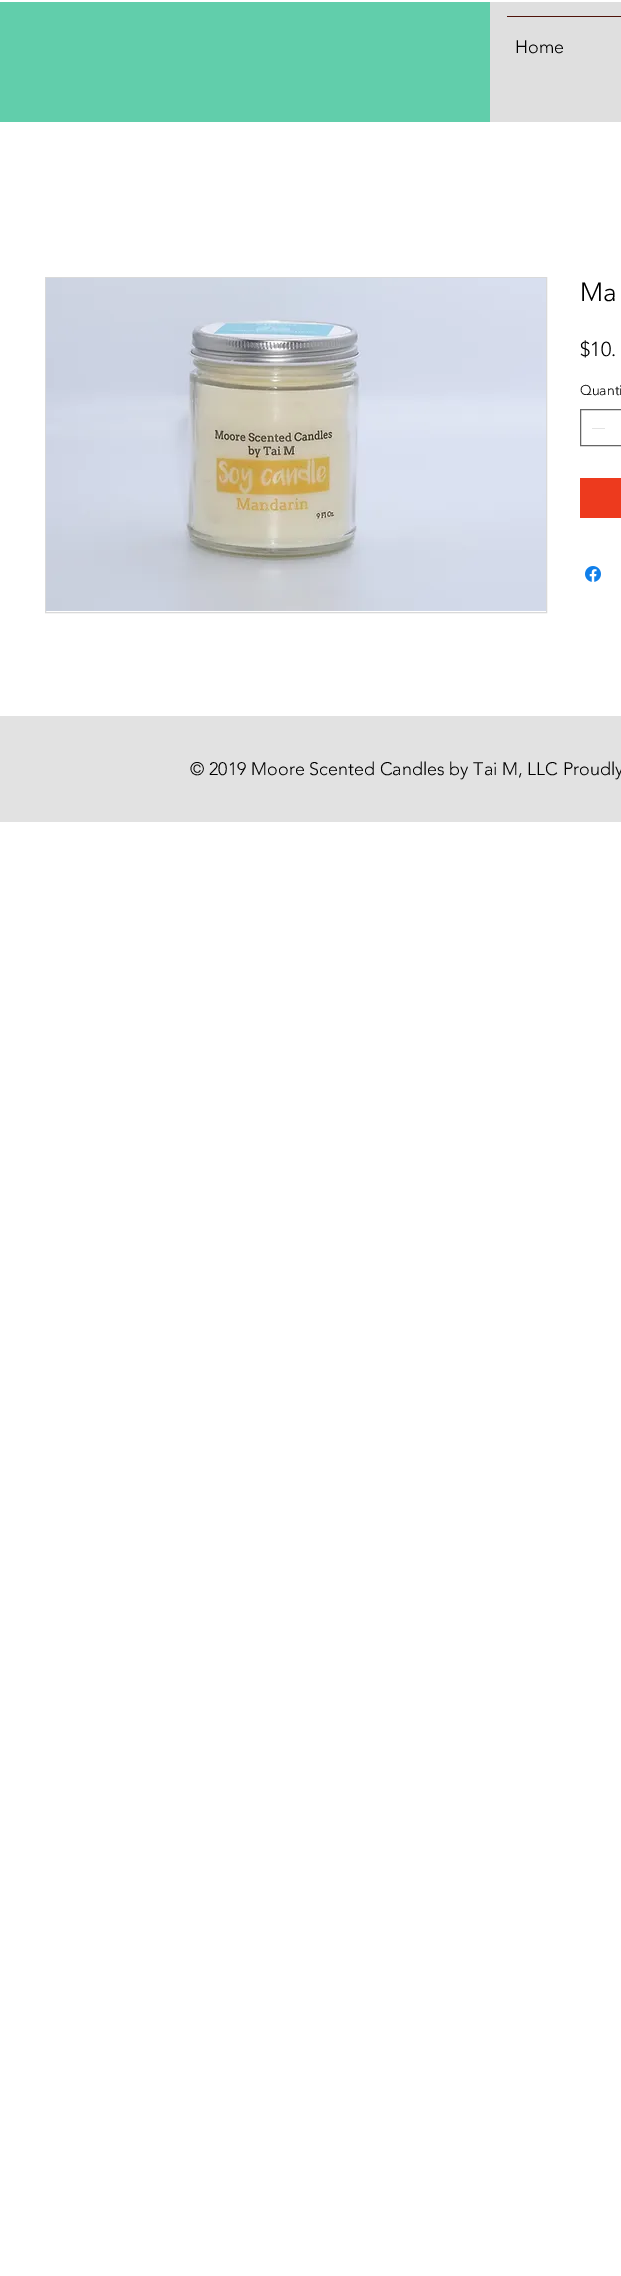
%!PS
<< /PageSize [621 2276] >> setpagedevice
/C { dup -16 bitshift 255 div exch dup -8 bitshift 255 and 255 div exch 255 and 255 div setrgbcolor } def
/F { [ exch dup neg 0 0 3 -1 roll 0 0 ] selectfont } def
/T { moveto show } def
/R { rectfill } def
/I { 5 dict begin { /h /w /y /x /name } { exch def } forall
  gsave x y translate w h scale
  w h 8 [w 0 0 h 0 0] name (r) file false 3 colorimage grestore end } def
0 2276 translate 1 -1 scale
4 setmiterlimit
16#FFFFFF C
0 0 621 2276 R
16#61CEAB C
0 2 490 120 R
16#DFDFDF C
490 2 131 120 R
16#4F130A C
507 16 114 1 R
/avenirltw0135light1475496-Light 18 F
16#000000 C
(Home) 515 53 T
16#D9D9D9 C
45.5 277.5 501 335 rectstroke
(1.rgb) 46 278 500 333 I
/avenirltw0135light1475496-Light 26 F
16#000000 C
(Ma) 580 301 T
/avenirltw0135light1475496-Light 20 F
($10.) 580 356 T
/avenirltw0135light1475496-Light 14 F
(Quanti) 580 395 T
16#666666 C
580.5 409.5 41 36 rectstroke
16#E3E3E3 C
592 428 13 1 R
16#ED3A1E C
580 478 41 40 R
(2.rgb) 585 566 16 16 I
16#E2E2E2 C
0 716 621 106 R
/avenirltw0135light1475496-Light 18 F
16#000000 C
(© 2019 Moore Scented Candles by Tai M, LLC Proudly) 190 775 T
showpage
